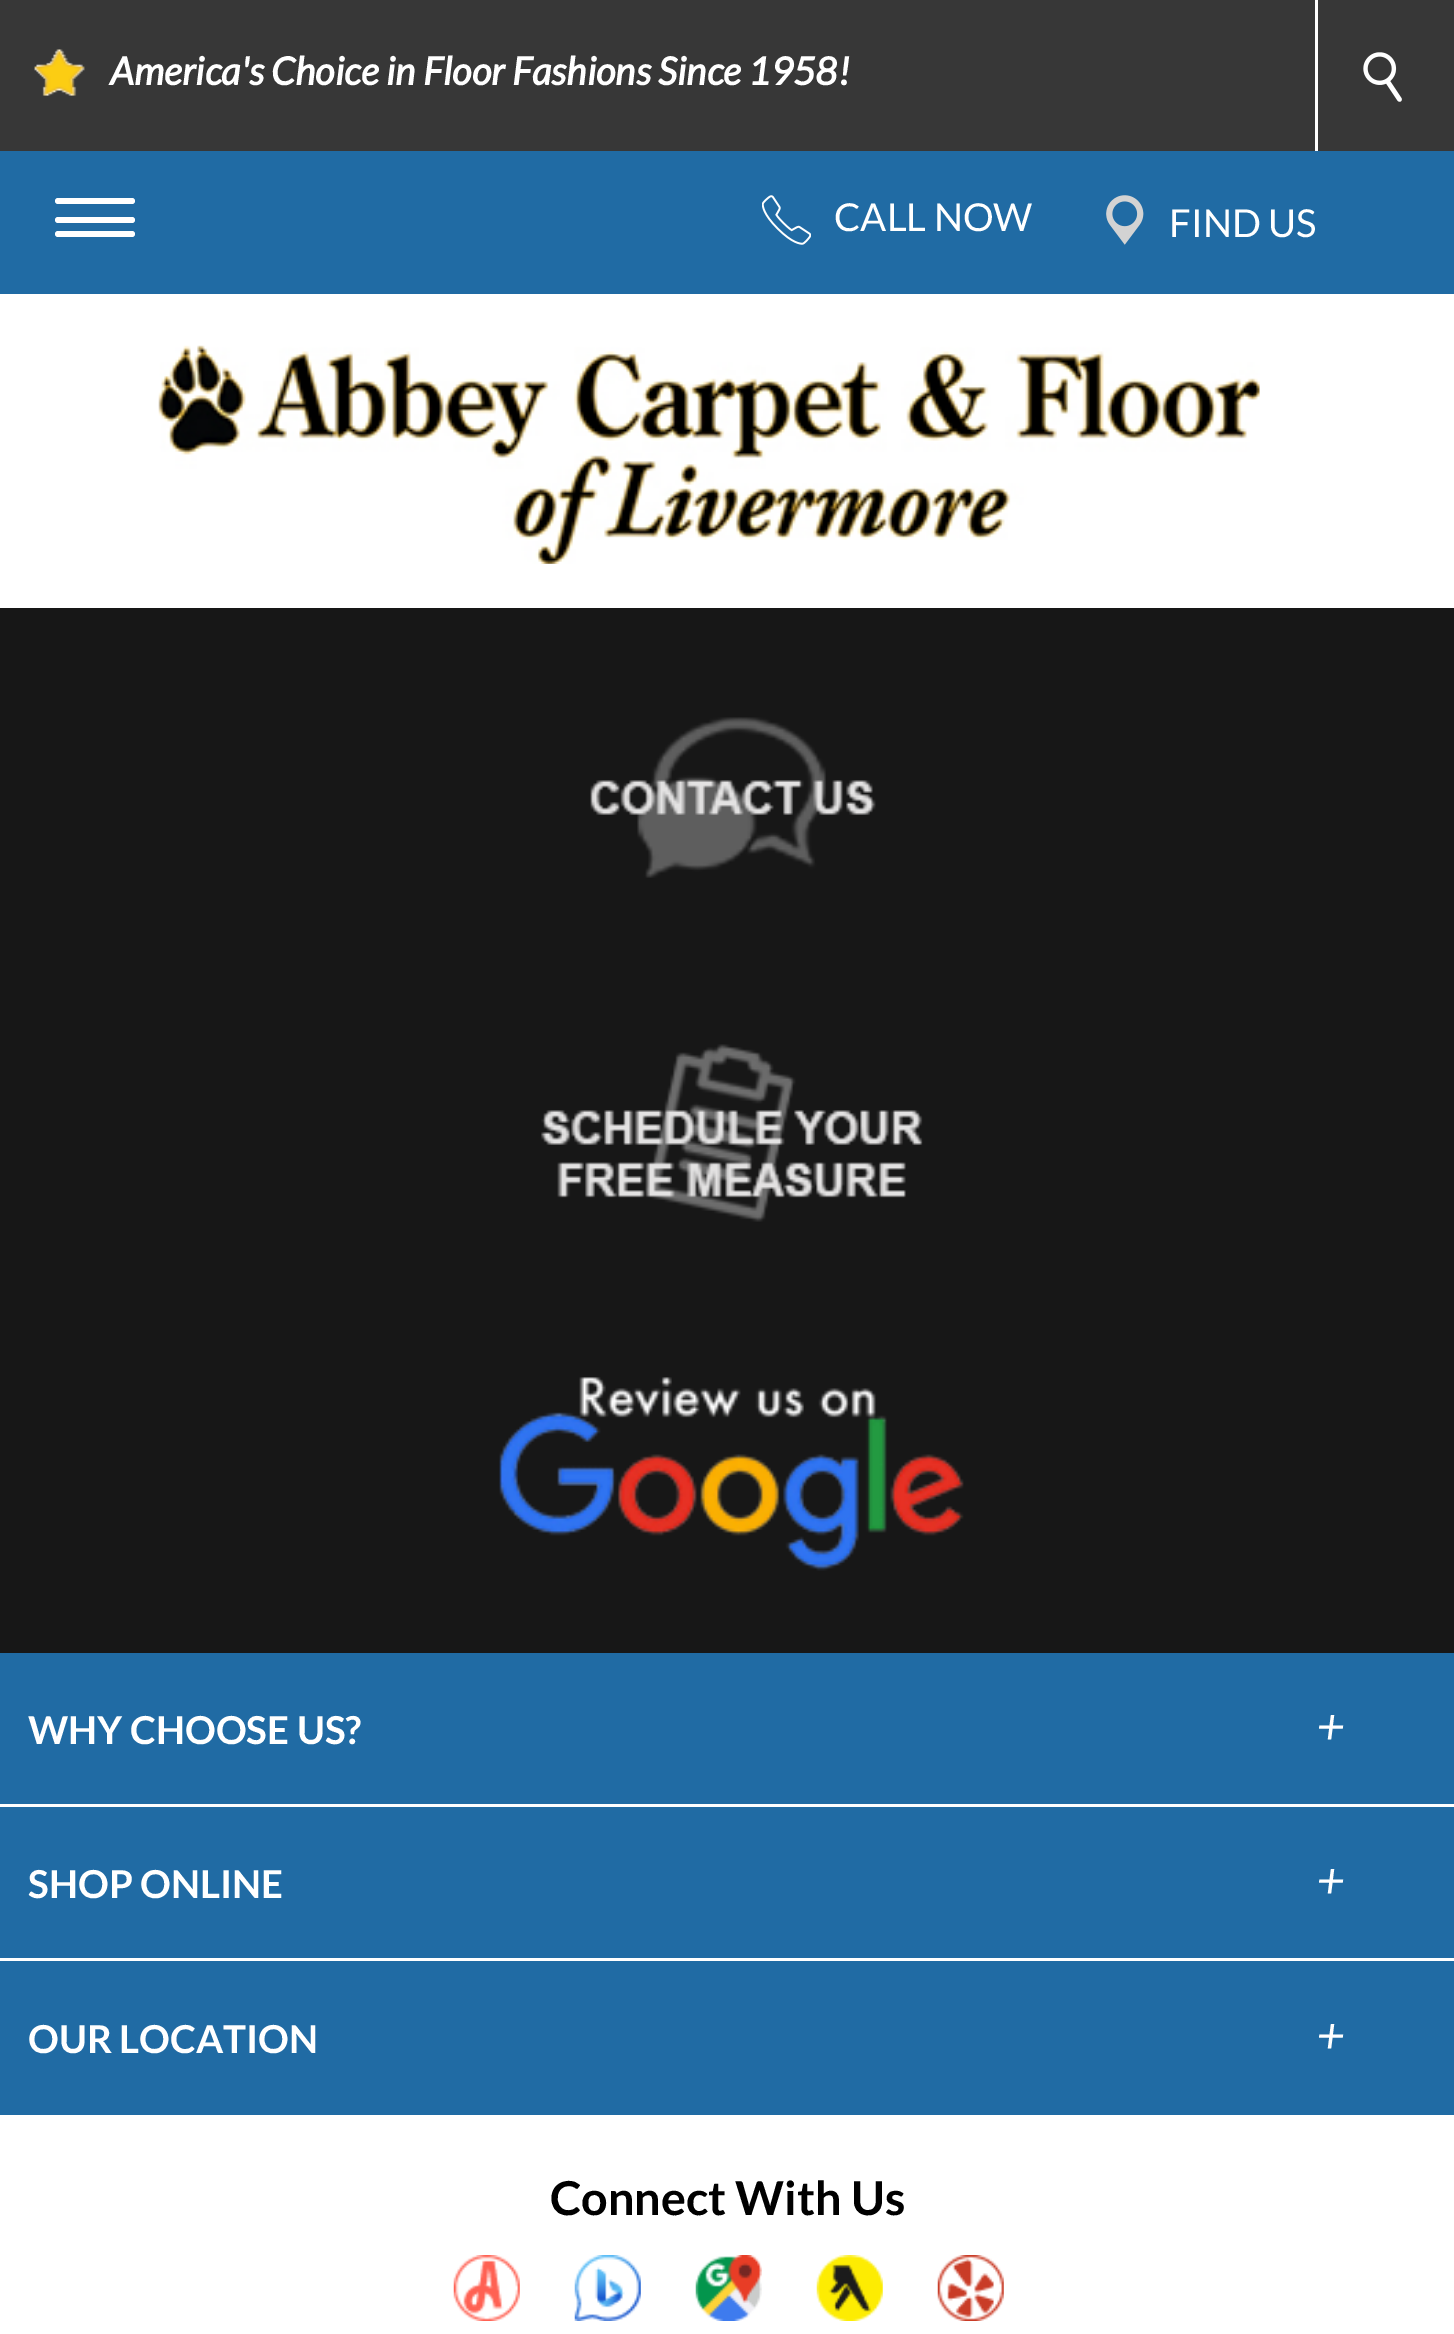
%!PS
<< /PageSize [1454 2334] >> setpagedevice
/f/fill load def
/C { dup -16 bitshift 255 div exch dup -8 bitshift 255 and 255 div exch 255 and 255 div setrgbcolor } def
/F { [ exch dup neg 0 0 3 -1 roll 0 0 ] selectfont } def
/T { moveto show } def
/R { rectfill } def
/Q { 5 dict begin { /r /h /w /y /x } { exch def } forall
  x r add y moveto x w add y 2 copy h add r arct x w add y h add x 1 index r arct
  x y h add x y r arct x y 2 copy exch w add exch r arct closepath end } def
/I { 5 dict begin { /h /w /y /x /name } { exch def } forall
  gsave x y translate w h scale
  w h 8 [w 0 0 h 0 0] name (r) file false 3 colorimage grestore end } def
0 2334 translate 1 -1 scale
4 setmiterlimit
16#FFFFFF C
0 0 1454 2334 R
16#373737 C
0 0 1454 151 R
(1.rgb) 34 49 51 47 I
/Lato-BoldItalic 38.5 F
16#FFFFFF C
(America's Choice in Floor Fashions Since 1958!) 110 85 T
16#206BA4 C
0 151 1454 143 R
16#FFFFFF C
55 198 80 6 3 Q f
91 217 44 6 3 Q f
55 217 44 6 3 Q f
55 231 80 6 3 Q f
1315 0 3 151 R
(2.rgb) 1363 52 39 50 I
(3.rgb) 762 195 49 50 I
/Lato-Regular 38.5 F
(CALL NOW) 834 231 T
(4.rgb) 1106 195 38 50 I
(FIND US) 1169 237 T
(5.rgb) 158 345 1102 219 I
16#171717 C
0 608 1454 1045 R
(6.rgb) 590 717 286 161 I
(7.rgb) 541 1044 382 178 I
(8.rgb) 499 1377 465 194 I
16#206BA4 C
0 1653 1454 151 R
/Lato-Bold 38.5 F
16#FFFFFF C
(WHY CHOOSE US?) 28 1744 T
/Lato-Italic 50 F
(+) 1316 1744 T
16#206BA4 C
0 1807 1454 151 R
/Lato-Bold 38.5 F
16#FFFFFF C
(SHOP ONLINE) 28 1898 T
/Lato-Italic 50 F
(+) 1316 1898 T
16#206BA4 C
0 1961 1454 154 R
/Lato-Bold 38.5 F
16#FFFFFF C
(OUR LOCATION) 28 2053 T
/Lato-Italic 50 F
(+) 1316 2053 T
/Lato-Bold 46.75 F
16#000000 C
(Connect With Us) 550 2215 T
(9.rgb) 453 2255 67 66 I
(10.rgb) 574 2255 67 66 I
(11.rgb) 695 2255 67 66 I
(12.rgb) 816 2255 67 66 I
(13.rgb) 937 2255 67 66 I
showpage
